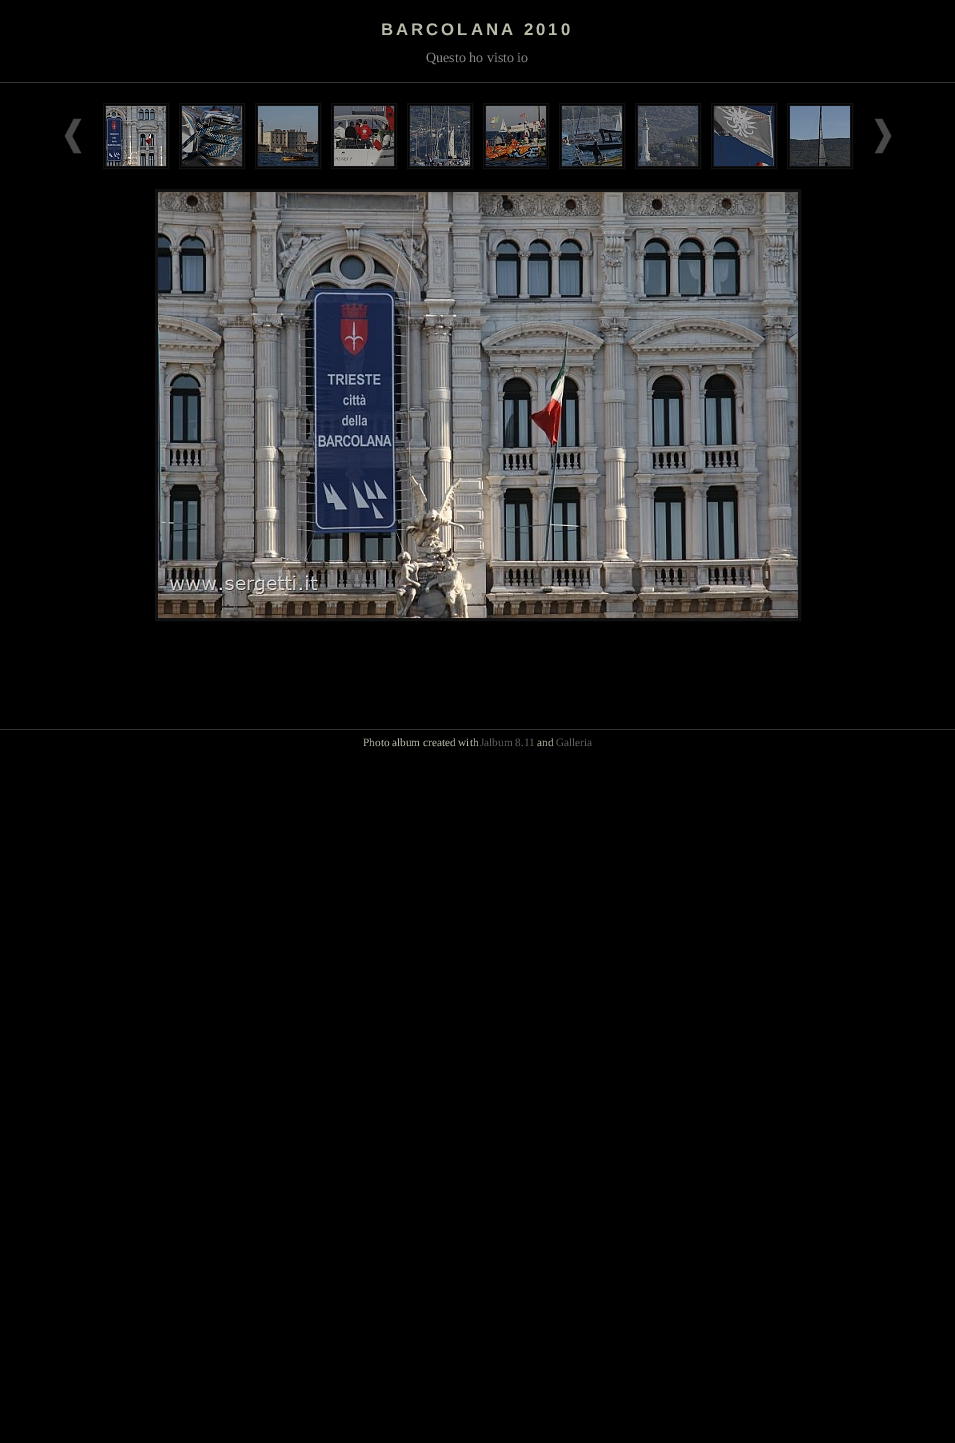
%!PS
<< /PageSize [955 1443] >> setpagedevice
/m/moveto load def
/w/setlinewidth load def
/C { dup -16 bitshift 255 div exch dup -8 bitshift 255 and 255 div exch 255 and 255 div setrgbcolor } def
/F { [ exch dup neg 0 0 3 -1 roll 0 0 ] selectfont } def
/T { moveto show } def
/R { rectfill } def
/I { 5 dict begin { /h /w /y /x /name } { exch def } forall
  gsave x y translate w h scale
  w h 8 [w 0 0 h 0 0] name (r) file false 3 colorimage grestore end } def
0 1443 translate 1 -1 scale
4 setmiterlimit
16#000000 C
0 0 955 1443 R
16#333333 C
0 82 955 1 R
/LiberationSans-Bold 16.75 F
16#BBBBAA C
381 35 m 3 0 (BARCOLANA 2010) ashow
/LiberationSerif-Regular 14 F
16#888888 C
(Questo ho visto io) 426 62 T
(1.rgb) 64 118 18 36 I
16#111111 C
103.5 103.5 65 65 rectstroke
105.5 105.5 61 61 rectstroke
(2.rgb) 106 106 60 60 I
179.5 103.5 65 65 rectstroke
181.5 105.5 61 61 rectstroke
(3.rgb) 182 106 60 60 I
255.5 103.5 65 65 rectstroke
257.5 105.5 61 61 rectstroke
(4.rgb) 258 106 60 60 I
331.5 103.5 65 65 rectstroke
333.5 105.5 61 61 rectstroke
(5.rgb) 334 106 60 60 I
407.5 103.5 65 65 rectstroke
409.5 105.5 61 61 rectstroke
(6.rgb) 410 106 60 60 I
483.5 103.5 65 65 rectstroke
485.5 105.5 61 61 rectstroke
(7.rgb) 486 106 60 60 I
559.5 103.5 65 65 rectstroke
561.5 105.5 61 61 rectstroke
(8.rgb) 562 106 60 60 I
635.5 103.5 65 65 rectstroke
637.5 105.5 61 61 rectstroke
(9.rgb) 638 106 60 60 I
711.5 103.5 65 65 rectstroke
713.5 105.5 61 61 rectstroke
(10.rgb) 714 106 60 60 I
787.5 103.5 65 65 rectstroke
789.5 105.5 61 61 rectstroke
(11.rgb) 790 106 60 60 I
(12.rgb) 874 118 18 36 I
3 w
156.5 190.5 643 429 rectstroke
(13.rgb) 158 192 640 426 I
16#333333 C
0 729 955 1 R
/LiberationSerif-Regular 11.25 F
16#BBBBAA C
(Photo album created with) 363 746 T
16#606060 C
(Jalbum 8.11) 480 746 T
16#BBBBAA C
(and) 537 746 T
16#606060 C
(Galleria) 556 746 T
showpage
